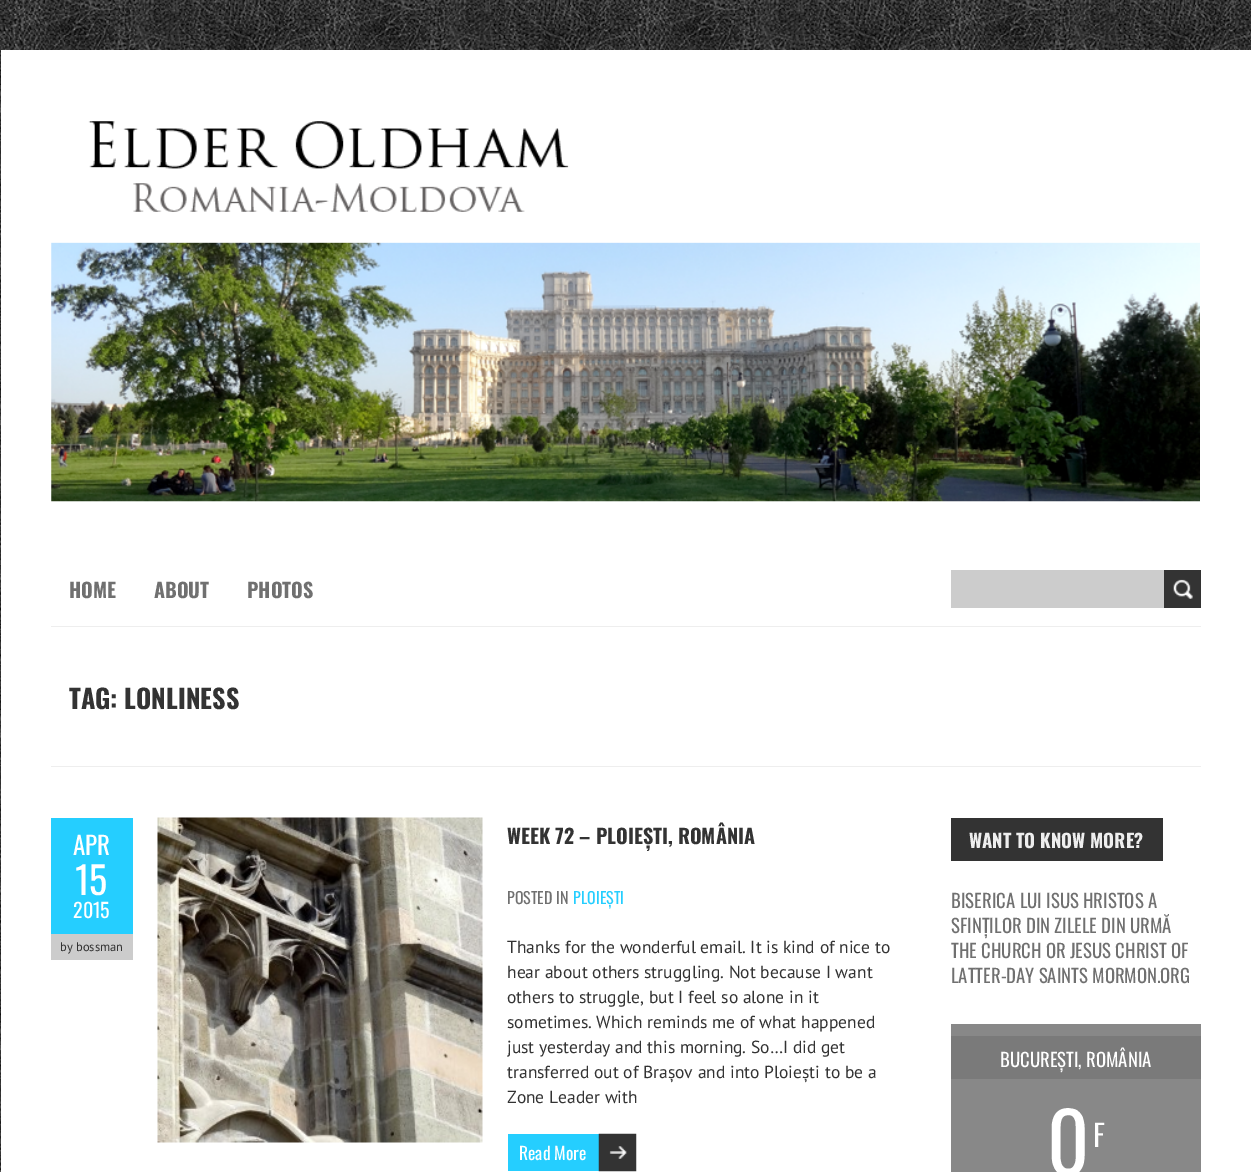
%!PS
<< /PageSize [1251 1172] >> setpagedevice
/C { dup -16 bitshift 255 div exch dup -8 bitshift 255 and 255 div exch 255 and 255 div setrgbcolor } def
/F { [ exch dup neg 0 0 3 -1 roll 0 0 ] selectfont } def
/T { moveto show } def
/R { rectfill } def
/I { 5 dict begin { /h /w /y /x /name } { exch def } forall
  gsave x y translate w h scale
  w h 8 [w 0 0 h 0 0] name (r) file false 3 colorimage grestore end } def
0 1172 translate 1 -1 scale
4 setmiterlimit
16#FFFFFF C
0 0 1251 1172 R
(1.rgb) 0 0 1251 1172 I
1 50 1250 1122 R
(2.rgb) 51 121 1149 381 I
16#EEEEEE C
51 626 1150 1 R
/Oswald-Bold 20 F
16#707070 C
(HOME) 69 598 T
(ABOUT) 154 598 T
(PHOTOS) 247 598 T
16#CCCCCC C
951 570 213 38 R
16#333333 C
1164 570 37 38 R
(3.rgb) 1173 579 20 20 I
16#EEEEEE C
51 766 1150 1 R
/Oswald-Bold 26.25 F
16#333333 C
(TAG: LONLINESS) 69 709 T
16#25CEFF C
51 818 82 116 R
/Oswald-Regular 25 F
16#FFFFFF C
(APR) 73 855 T
/Oswald-Regular 38 F
(15) 75 895 T
/Oswald-Regular 20 F
(2015) 73 918 T
16#CCCCCC C
51 934 82 26 R
/PTSans-Regular 12.5 F
16#333333 C
(by bossman) 60 951 T
(4.rgb) 157 817 326 326 I
/Oswald-Bold 20 F
(WEEK 72 – PLOIEȘTI, ROMÂNIA) 507 844 T
/Oswald-Regular 16 F
16#707070 C
(POSTED IN) 507 904 T
16#25CEFF C
(PLOIEȘTI) 573 904 T
/PTSans-Regular 17.5 F
16#333333 C
(Thanks for the wonderful email. It is kind of nice to) 507 953 T
(hear about others struggling. Not because I want) 507 978 T
(others to struggle, but I feel so alone in it) 507 1003 T
(sometimes. Which reminds me of what happened) 507 1028 T
(just yesterday and this morning. So…I did get) 507 1053 T
(transferred out of Brașov and into Ploiești to be a) 507 1078 T
(Zone Leader with) 507 1103 T
16#25CEFF C
508 1134 91 37 R
(5.rgb) 598 1133 39 39 I
/Oswald-Regular 17.5 F
16#FFFFFF C
(Read More) 519 1160 T
16#333333 C
951 818 212 43 R
/Oswald-Bold 18.75 F
16#EEEEEE C
(WANT TO KNOW MORE?) 969 848 T
/Oswald-Regular 18.75 F
16#707070 C
(BISERICA LUI ISUS HRISTOS A) 951 908 T
(SFINȚILOR DIN ZILELE DIN URMĂ) 951 933 T
(THE CHURCH OR JESUS CHRIST OF) 951 958 T
(LATTER-DAY SAINTS MORMON.ORG) 951 983 T
16#888888 C
951 1024 250 148 R
16#7A7A7A C
951 1036 250 43 R
16#FFFFFF C
(BUCUREȘTI, ROMÂNIA) 1000 1067 T
/Oswald-Regular 82 F
(0) 1047 1175 T
/Oswald-Regular 30 F
(F) 1093 1147 T
showpage
